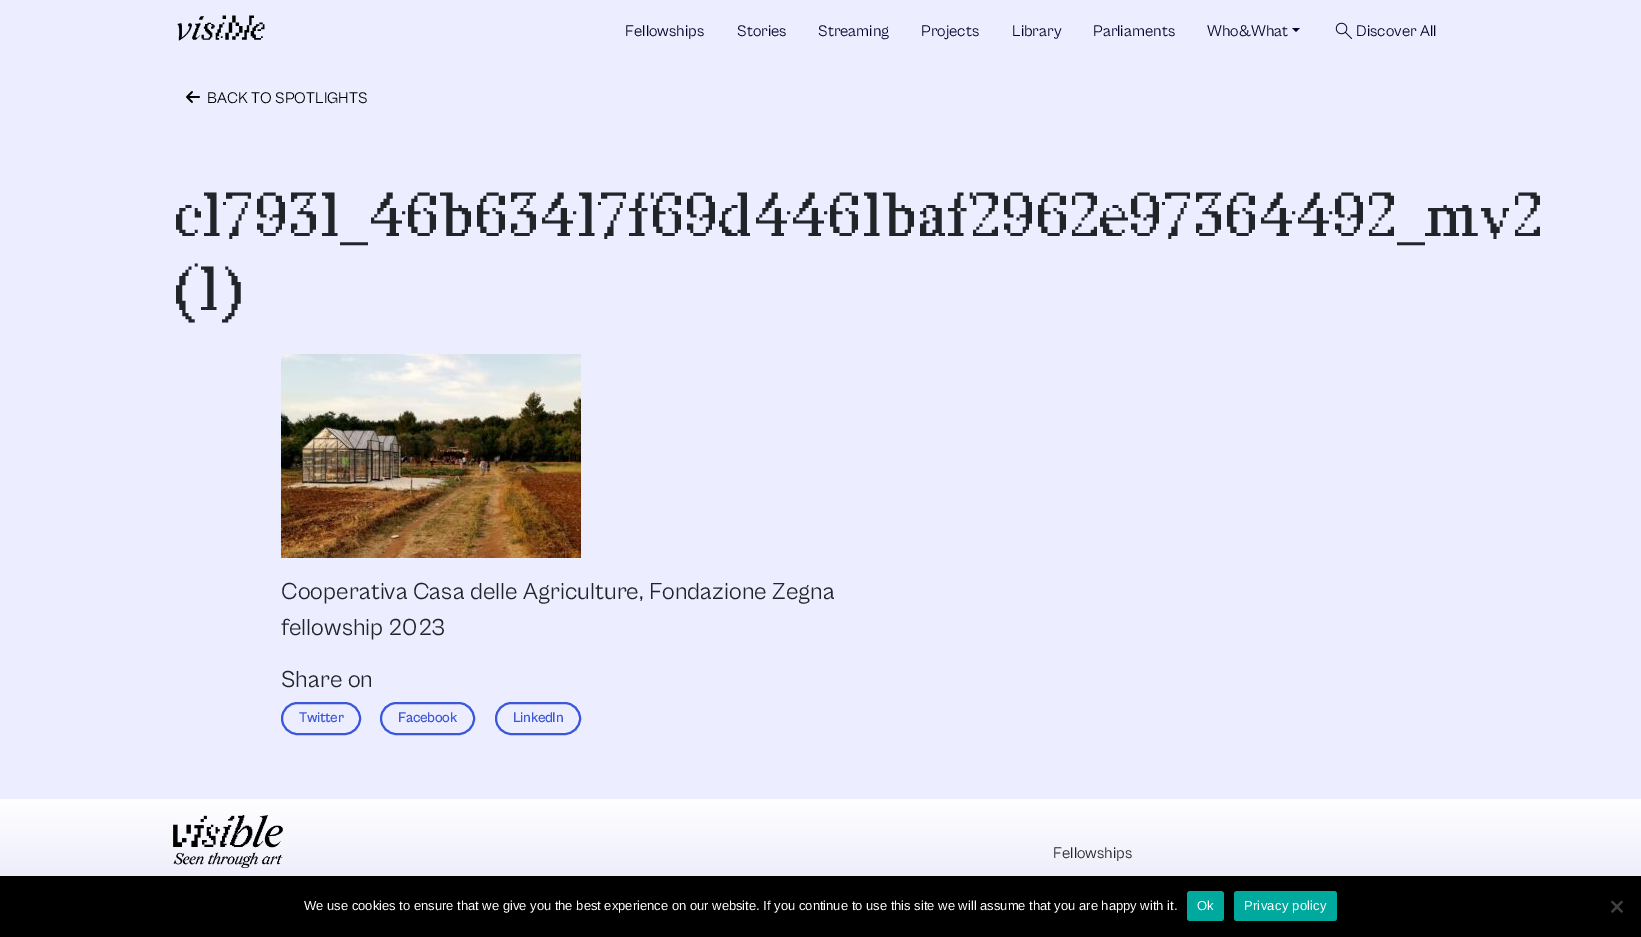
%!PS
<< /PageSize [1641 937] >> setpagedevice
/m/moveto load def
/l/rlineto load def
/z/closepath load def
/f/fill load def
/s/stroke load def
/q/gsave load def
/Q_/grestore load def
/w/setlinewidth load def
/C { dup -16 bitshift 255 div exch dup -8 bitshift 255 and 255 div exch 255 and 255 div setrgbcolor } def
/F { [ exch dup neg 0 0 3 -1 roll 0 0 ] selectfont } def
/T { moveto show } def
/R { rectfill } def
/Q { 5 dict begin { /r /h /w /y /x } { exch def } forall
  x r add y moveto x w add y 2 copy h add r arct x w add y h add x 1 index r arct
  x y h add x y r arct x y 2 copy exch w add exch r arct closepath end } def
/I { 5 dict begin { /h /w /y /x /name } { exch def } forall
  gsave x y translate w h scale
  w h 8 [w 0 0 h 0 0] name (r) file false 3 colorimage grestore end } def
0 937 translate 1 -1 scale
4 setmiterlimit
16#ECEDFF C
0 0 1641 937 R
(1.rgb) 177 15 88 26 I
/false-Regular 16 F
16#06002A C
(Fellowships) 625 36 T
(Stories) 737 36 T
(Streaming) 818 36 T
(Projects) 921 36 T
(Library) 1012 36 T
(Parliaments) 1093 36 T
(Who&What) 1207 36 T
1292 28 m 8 0 l -4 4 l z f
(2.rgb) 1335 22 18 18 I
(Discover All) 1356 36 T
(3.rgb) 186 91 14 12 I
16#000000 C
(BACK TO SPOTLIGHTS) 207 103 T
/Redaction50-Regular 62 F
16#212529 C
(c17931_46b63417f69d4461baf2962e97364492_mv2) 173 236 T
(\(1\)) 173 310 T
(4.rgb) 281 354 300 204 I
/false-Regular 24 F
(Cooperativa Casa delle Agriculture, Fondazione Zegna) 281 599 T
(fellowship 2023) 281 635 T
(Share on) 281 687 T
16#3C58D9 C
2 w
282 703 78 31 15.5 Q s
/false-Bold 14 F
(Twitter) 299 722 T
381 703 93 31 15.5 Q s
(Facebook) 398 722 T
496 703 84 31 15.5 Q s
(LinkedIn) 513 722 T
q 0 799 m 1641 0 l 0 77 l -1641 0 l z clip newpath
<< /ShadingType 2 /ColorSpace /DeviceRGB /Coords [821 799 821 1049] /Extend [true true] /Function << /FunctionType 2 /Domain [0 1] /C0 [1 1 1] /C1 [.773 .78 .945] /N 1 >> >> shfill Q_
(5.rgb) 173 815 110 53 I
/false-Regular 16 F
16#212529 C
(Fellowships) 1053 858 T
16#000000 C
0 876 1641 61 R
/LiberationSans-Regular 13 F
16#FFFFFF C
(We use cookies to ensure that we give you the best experience on our website. If you continue to use this site we will assume that you are happy with it.) 304 910 T
16#00A99D C
1187 891 37 30 3 Q f
16#FFFFFF C
1197 910 m .25 0 (Ok) ashow
16#00A99D C
1234 891 103 30 3 Q f
16#FFFFFF C
1244 910 m .25 0 (Privacy policy) ashow
16#404040 C
1621.5 900.5 m 1.5 1.5 l -10.5 11 l -1.5 -1.5 l z f
1611 902 m 1.5 -1.5 l 10.5 11 l -1.5 1.5 l z f
showpage
